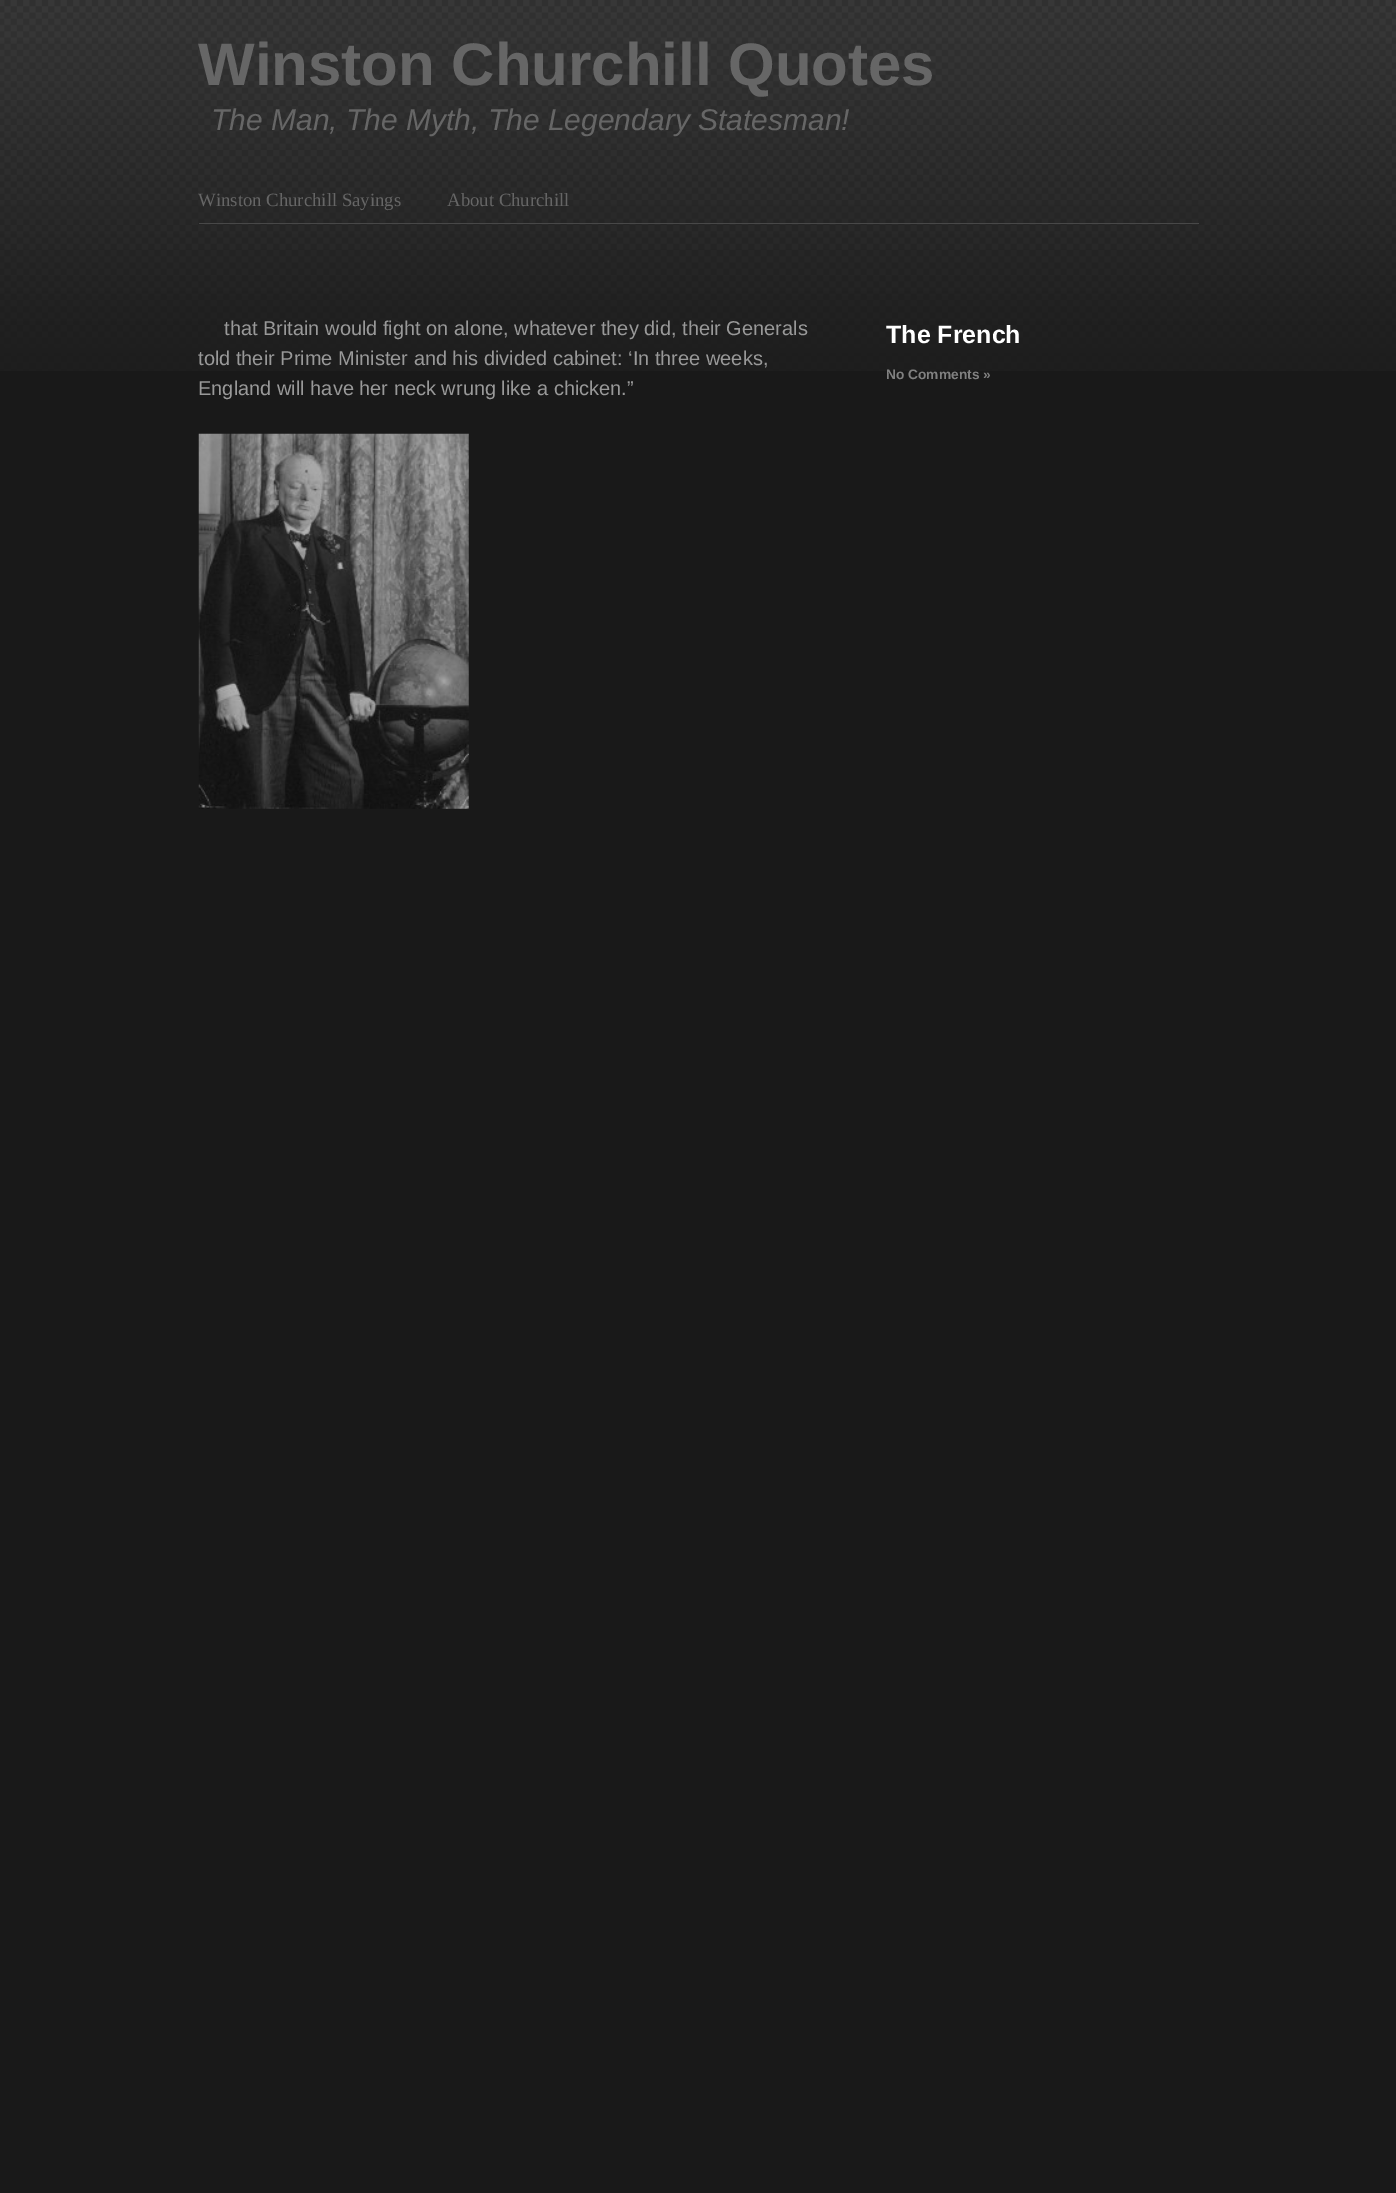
%!PS
<< /PageSize [1396 2193] >> setpagedevice
/C { dup -16 bitshift 255 div exch dup -8 bitshift 255 and 255 div exch 255 and 255 div setrgbcolor } def
/F { [ exch dup neg 0 0 3 -1 roll 0 0 ] selectfont } def
/T { moveto show } def
/R { rectfill } def
/I { 5 dict begin { /h /w /y /x /name } { exch def } forall
  gsave x y translate w h scale
  w h 8 [w 0 0 h 0 0] name (r) file false 3 colorimage grestore end } def
0 2193 translate 1 -1 scale
4 setmiterlimit
16#191919 C
0 0 1396 2193 R
(1.rgb) 0 0 1396 371 I
16#484848 C
199 223 1000 1 R
/LiberationSans-Bold 60 F
16#666666 C
(Winston Churchill Quotes) 198 85 T
/LiberationSans-Italic 30 F
(The Man, The Myth, The Legendary Statesman!) 211 130 T
/LiberationSerif-Regular 18.75 F
(Winston Churchill Sayings) 198 206 T
(About Churchill) 447 206 T
/LiberationSans-Regular 20 F
16#999999 C
(that Britain would fight on alone, whatever they did, their Generals) 224 335 T
(told their Prime Minister and his divided cabinet: ‘In three weeks,) 198 365 T
(England will have her neck wrung like a chicken.”) 198 395 T
(2.rgb) 198 433 271 376 I
/LiberationSans-Bold 25 F
16#FFFFFF C
(The French) 886 343 T
/LiberationSans-Bold 13.75 F
16#808080 C
(No Comments ») 886 379 T
showpage
